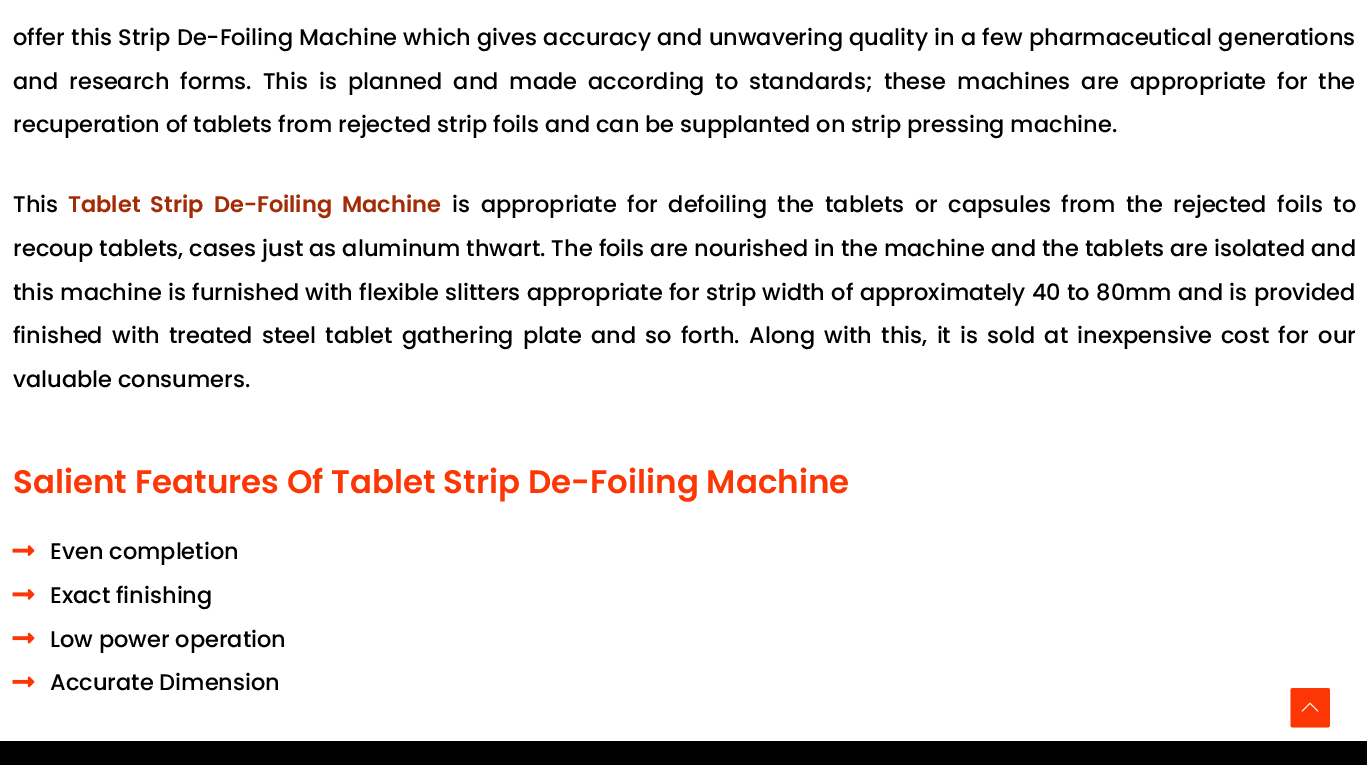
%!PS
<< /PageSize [1367 765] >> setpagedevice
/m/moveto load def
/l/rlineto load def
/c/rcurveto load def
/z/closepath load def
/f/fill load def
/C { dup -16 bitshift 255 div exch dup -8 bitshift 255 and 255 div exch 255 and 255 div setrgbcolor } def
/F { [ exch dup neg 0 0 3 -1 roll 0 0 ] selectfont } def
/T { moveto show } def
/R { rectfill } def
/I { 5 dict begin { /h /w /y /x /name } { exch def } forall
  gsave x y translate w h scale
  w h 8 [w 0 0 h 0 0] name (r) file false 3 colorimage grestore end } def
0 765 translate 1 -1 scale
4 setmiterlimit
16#FFFFFF C
0 0 1367 765 R
/Poppins-Medium 22.5 F
16#000000 C
13 45 m .5 0 32 (offer this Strip De-Foiling Machine which gives accuracy and unwavering quality in a few pharmaceutical generations) widthshow
13 89 m 5.1 0 32 (and research forms. This is planned and made according to standards; these machines are appropriate for the) widthshow
(recuperation of tablets from rejected strip foils and can be supplanted on strip pressing machine.) 13 132 T
(This) 13 212 T
/Poppins-SemiBold 22.5 F
16#A32B05 C
68 212 m 4.75 0 32 (Tablet Strip De-Foiling Machine) widthshow
/Poppins-Medium 22.5 F
16#000000 C
452 212 m 4.75 0 32 (is appropriate for defoiling the tablets or capsules from the rejected foils to) widthshow
13 256 m .2 0 32 (recoup tablets, cases just as aluminum thwart. The foils are nourished in the machine and the tablets are isolated and) widthshow
13 300 m .5 0 32 (this machine is furnished with flexible slitters appropriate for strip width of approximately 40 to 80mm and is provided) widthshow
13 343 m 3.5 0 32 (finished with treated steel tablet gathering plate and so forth. Along with this, it is sold at inexpensive cost for our) widthshow
(valuable consumers.) 13 387 T
/Poppins-SemiBold 32.5 F
16#FC3604 C
(Salient Features Of Tablet Strip De-Foiling Machine) 13 493 T
(1.rgb) 12 545 23 11 I
/Poppins-Medium 22.5 F
16#000000 C
(Even completion) 50 559 T
(2.rgb) 12 589 23 11 I
(Exact finishing) 50 603 T
(3.rgb) 12 632 23 12 I
(Low power operation) 50 647 T
(4.rgb) 12 676 23 12 I
(Accurate Dimension) 50 690 T
0 741 1367 24 R
16#FC3604 C
1327.5 727.5 m -34.5 0 l -1.5 0 -2.5 -1 -2.5 -2.5 c 0 -34.5 l 0 -1.5 1 -2.5 2.5 -2.5 c 34.5 0 l 1.5 0 2.5 1 2.5 2.5 c 0 34.5 l 0 1.5 -1 2.5 -2.5 2.5 c z f
(5.rgb) 1301 702 18 10 I
showpage
